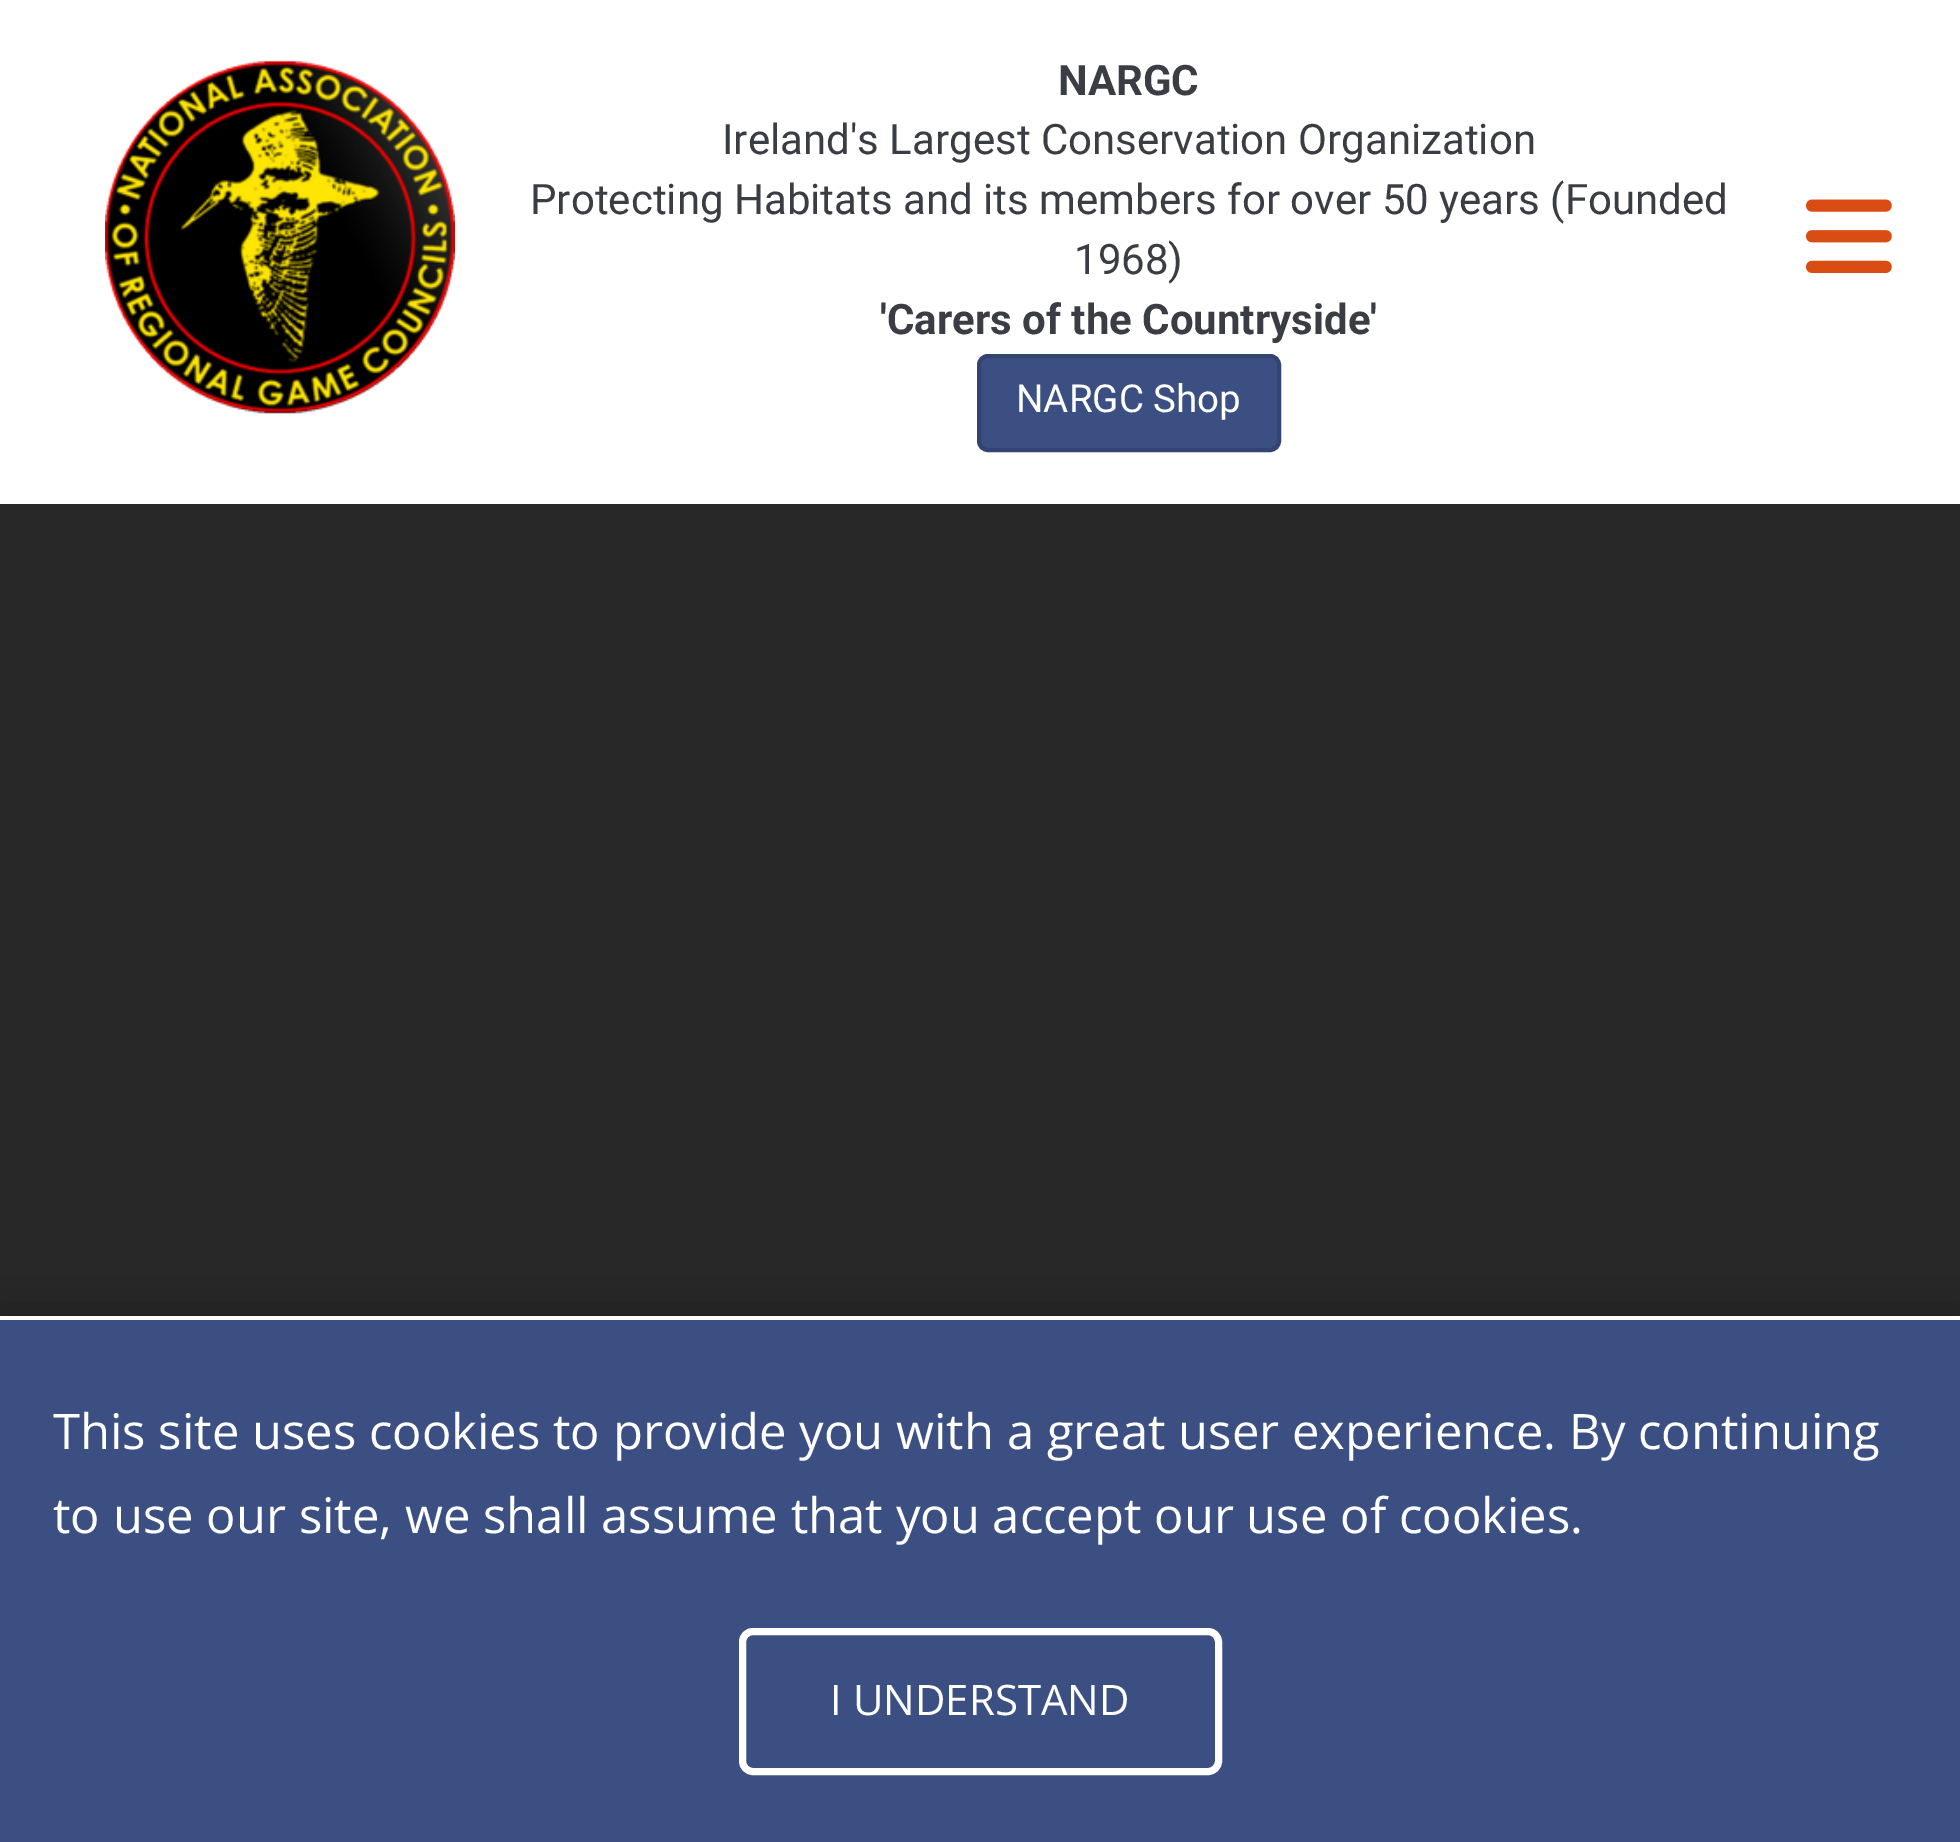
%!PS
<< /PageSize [1960 1842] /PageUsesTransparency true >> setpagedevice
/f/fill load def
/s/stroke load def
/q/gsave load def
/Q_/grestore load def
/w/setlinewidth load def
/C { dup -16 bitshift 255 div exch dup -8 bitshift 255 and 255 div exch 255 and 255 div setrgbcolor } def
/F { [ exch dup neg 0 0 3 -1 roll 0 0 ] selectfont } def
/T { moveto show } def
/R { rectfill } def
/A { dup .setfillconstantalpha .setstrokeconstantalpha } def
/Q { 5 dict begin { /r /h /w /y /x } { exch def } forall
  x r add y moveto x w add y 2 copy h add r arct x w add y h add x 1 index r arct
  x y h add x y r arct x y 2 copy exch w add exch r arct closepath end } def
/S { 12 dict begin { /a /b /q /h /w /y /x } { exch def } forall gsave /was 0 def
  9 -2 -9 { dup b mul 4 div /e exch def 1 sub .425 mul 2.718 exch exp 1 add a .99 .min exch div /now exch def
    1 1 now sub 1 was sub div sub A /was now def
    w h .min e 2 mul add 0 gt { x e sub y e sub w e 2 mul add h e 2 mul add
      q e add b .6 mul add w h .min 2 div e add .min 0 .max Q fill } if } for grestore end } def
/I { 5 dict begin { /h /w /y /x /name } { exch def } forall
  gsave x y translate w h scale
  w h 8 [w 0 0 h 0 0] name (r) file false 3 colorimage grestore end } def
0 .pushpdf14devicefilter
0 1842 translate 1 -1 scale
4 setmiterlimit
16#FFFFFF C
0 0 1960 1842 R
(1.rgb) 105 60 350 354 I
/Roboto-Bold 42 F
16#3A3D43 C
(NARGC) 1058 95 T
/Roboto-Regular 42 F
(Ireland's Largest Conservation Organization) 722 154 T
(Protecting Habitats and its members for over 50 years \(Founded) 530 214 T
(1968\)) 1074 274 T
/Roboto-Bold 42 F
('Carers of the Countryside') 880 334 T
16#3C4F83 C
979 356 300 94 9 Q q f Q_
16#344472 C
4 w
s
/Roboto-Regular 38.5 F
16#FFFFFF C
(NARGC Shop) 1016 412 T
(2.rgb) 1806 199 86 74 I
16#282828 C
0 504 1960 812 R
16#000000 C
0 1334 1960 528 0 26 .5 S
16#3C4F83 C
0 1320 1960 522 R
16#FFFFFF C
0 1316 1960 4 R
/OpenSans-Regular 49 F
(This site uses cookies to provide you with a great user experience. By continuing) 53 1449 T
(to use our site, we shall assume that you accept our use of cookies.) 53 1533 T
7 w
742.5 1631.5 476 140 10.5 Q s
/OpenSans-Regular 42 F
(I UNDERSTAND) 830 1715 T
.poppdf14devicefilter showpage
